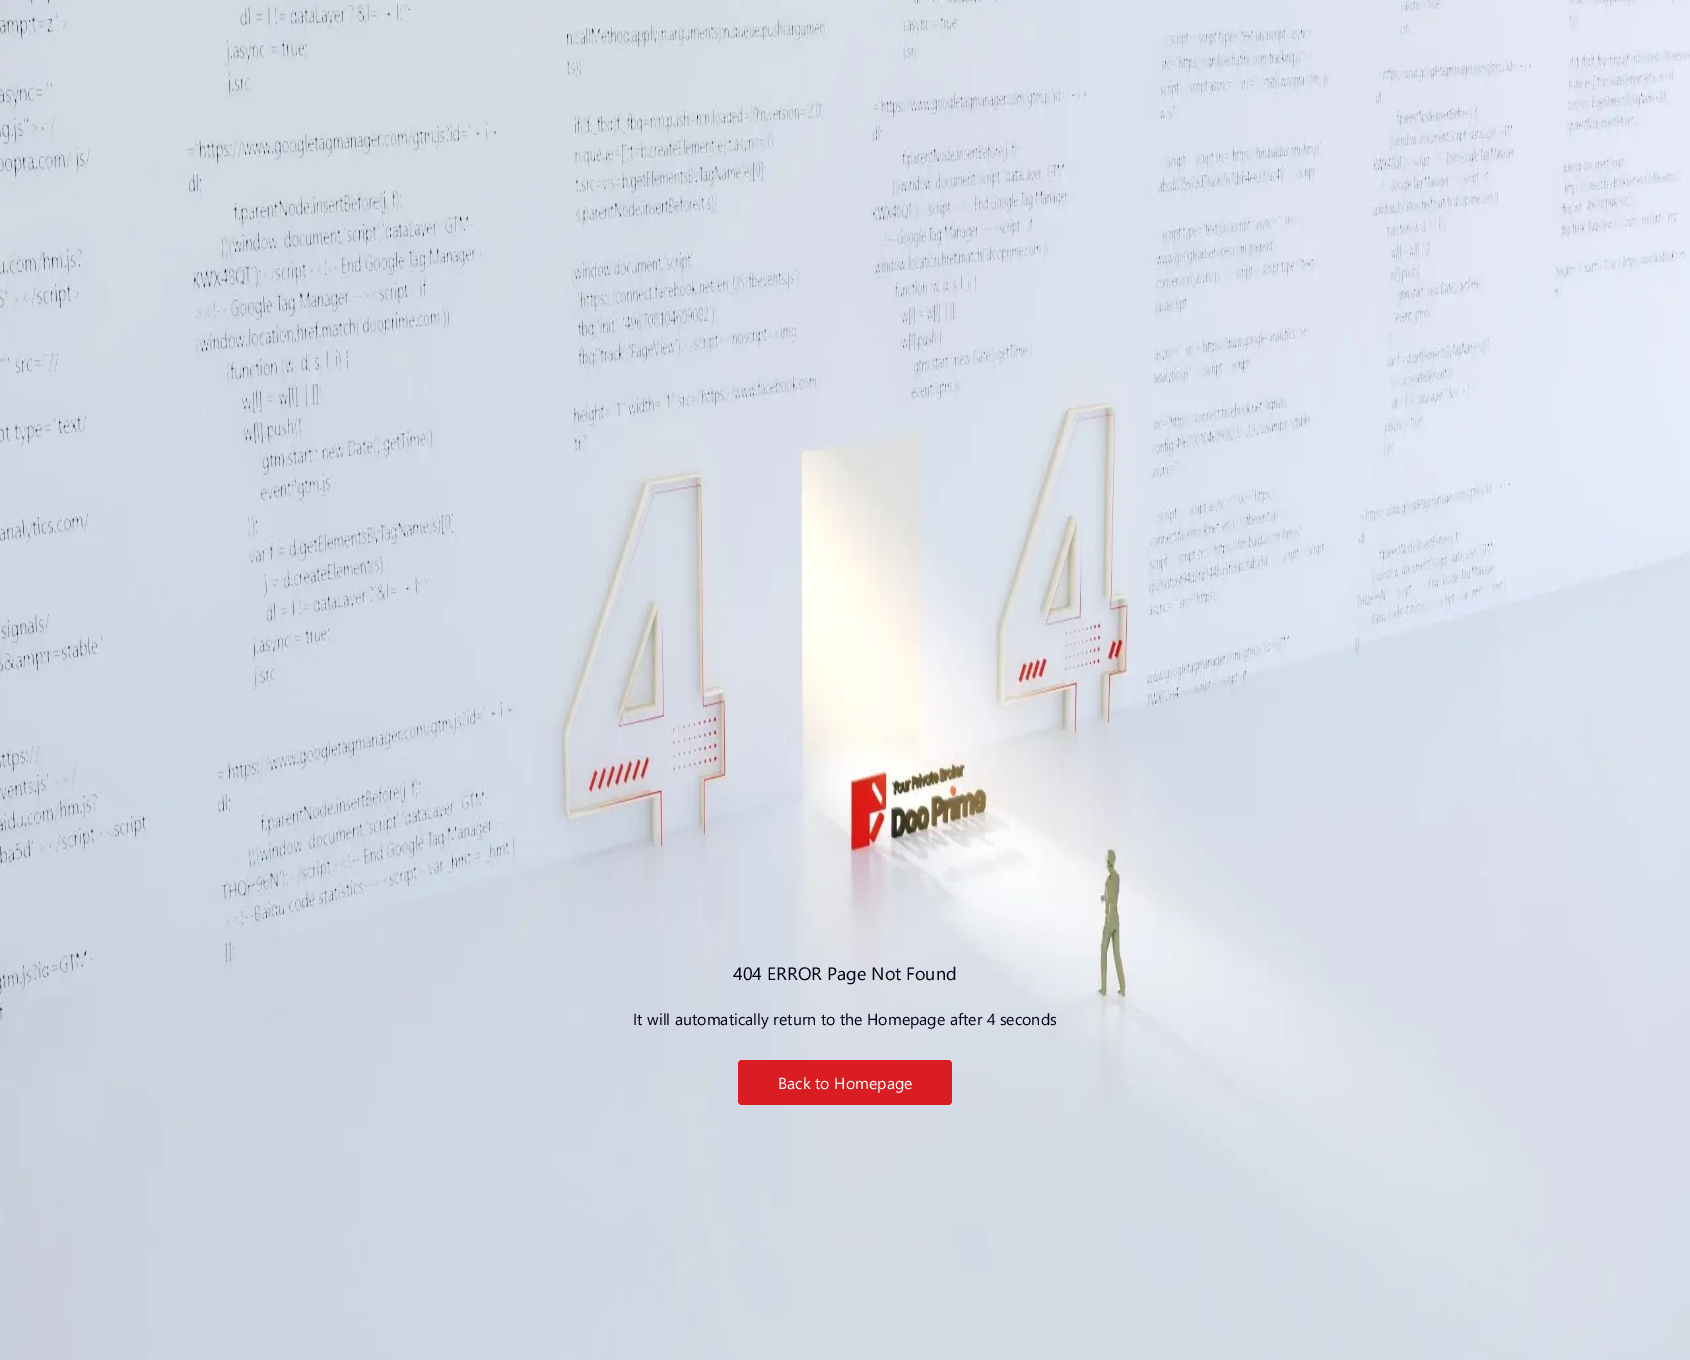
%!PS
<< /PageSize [1690 1360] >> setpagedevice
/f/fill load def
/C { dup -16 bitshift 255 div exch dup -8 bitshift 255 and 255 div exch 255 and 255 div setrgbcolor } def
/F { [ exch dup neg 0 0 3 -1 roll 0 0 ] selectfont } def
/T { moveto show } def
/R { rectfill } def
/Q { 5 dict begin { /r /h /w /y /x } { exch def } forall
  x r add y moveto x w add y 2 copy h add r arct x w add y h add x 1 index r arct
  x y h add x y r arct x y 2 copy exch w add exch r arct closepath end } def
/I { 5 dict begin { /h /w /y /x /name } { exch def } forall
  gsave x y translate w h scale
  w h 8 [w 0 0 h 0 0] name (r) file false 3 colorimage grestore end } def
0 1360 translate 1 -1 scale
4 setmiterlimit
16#FFFFFF C
0 0 1690 1360 R
(1.rgb) 0 0 1690 1360 I
/SegoeUI-Regular 18 F
16#000018 C
(404 ERROR Page Not Found) 733 980 T
/SegoeUI-Regular 16 F
(It will automatically return to the Homepage after 4 seconds) 633 1025 T
16#D91D22 C
738 1060 214 45 4 Q f
16#FFFFFF C
(Back to Homepage) 778 1089 T
showpage
